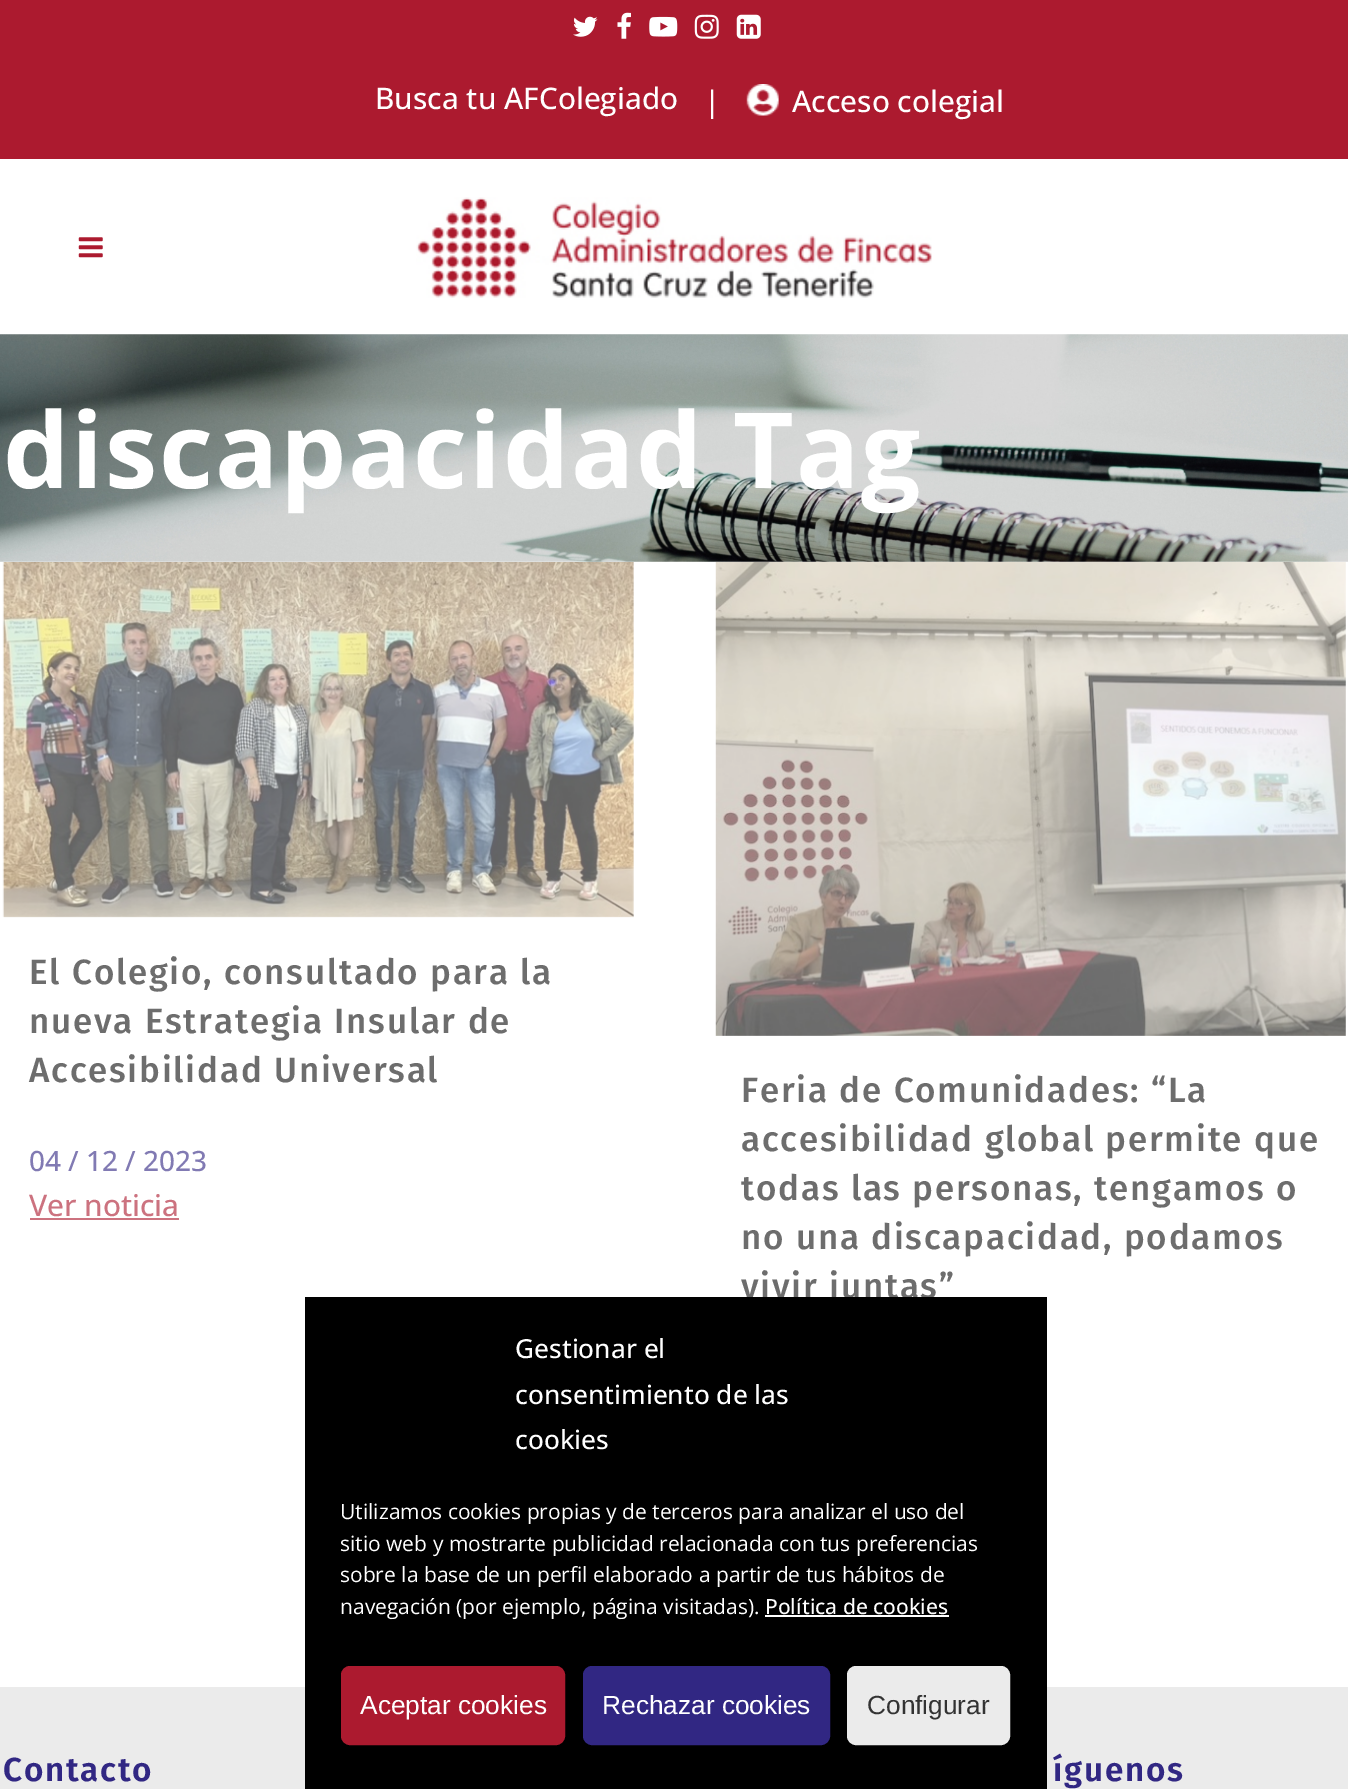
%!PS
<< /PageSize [1348 1789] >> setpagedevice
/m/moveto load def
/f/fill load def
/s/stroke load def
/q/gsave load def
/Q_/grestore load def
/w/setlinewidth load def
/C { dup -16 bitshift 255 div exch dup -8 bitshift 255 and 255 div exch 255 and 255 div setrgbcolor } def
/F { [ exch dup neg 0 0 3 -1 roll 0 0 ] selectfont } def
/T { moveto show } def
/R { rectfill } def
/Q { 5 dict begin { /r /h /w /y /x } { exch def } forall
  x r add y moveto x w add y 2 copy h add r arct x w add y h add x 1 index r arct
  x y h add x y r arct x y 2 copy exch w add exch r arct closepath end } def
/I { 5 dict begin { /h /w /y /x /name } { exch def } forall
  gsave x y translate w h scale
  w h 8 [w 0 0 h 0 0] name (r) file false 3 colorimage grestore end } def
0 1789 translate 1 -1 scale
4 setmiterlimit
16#FFFFFF C
0 0 1348 1789 R
16#AC1A2F C
0 0 1348 159 R
(1.rgb) 573 16 25 21 I
(2.rgb) 617 12 14 27 I
(3.rgb) 649 16 29 21 I
(4.rgb) 694 14 25 25 I
(5.rgb) 736 14 25 25 I
/OpenSans-Medium 29.75 F
16#FFFFFF C
(Busca tu AFColegiado) 375 109 T
(|) 704 112 T
(6.rgb) 746 84 33 32 I
(Acceso colegial) 792 112 T
(7.rgb) 78 237 25 21 I
(8.rgb) 416 197 516 101 I
(9.rgb) 0 334 1348 228 I
/OpenSans-Bold 105 F
3 488 m 1.75 0 (discapacidad Tag) ashow
(10.rgb) 2 562 632 356 I
/FiraSans-Medium 35 F
16#6D6D6D C
29 984 m 1.75 0 (El Colegio, consultado para la) ashow
29 1033 m 1.75 0 (nueva Estrategia Insular de) ashow
29 1082 m 1.75 0 (Accesibilidad Universal) ashow
/OpenSans-Medium 28 F
16#817AB3 C
(04 / 12 / 2023) 29 1171 T
/OpenSans-Medium 29.75 F
16#CC727F C
(Ver noticia) 29 1216 T
30 1218 149 2 R
(11.rgb) 715 562 631 474 I
/FiraSans-Medium 35 F
16#6D6D6D C
741 1102 m 1.75 0 (Feria de Comunidades: “La) ashow
741 1151 m 1.75 0 (accesibilidad global permite que) ashow
741 1200 m 1.75 0 (todas las personas, tengamos o) ashow
741 1249 m 1.75 0 (no una discapacidad, podamos) ashow
741 1298 m 1.75 0 (vivir juntas”) ashow
16#EBEBEB C
0 1687 1348 102 R
/FiraSans-SemiBold 33.25 F
16#312783 C
3 1781 m 1.75 0 (Contacto) ashow
1053 1781 m 1.75 0 (íguenos) ashow
16#000000 C
305 1297 742 492 R
/OpenSans-Medium 26.25 F
16#FFFFFF C
(Gestionar el) 515 1358 T
(consentimiento de las) 515 1404 T
(cookies) 515 1449 T
/OpenSans-Regular 21 F
(Utilizamos cookies propias y de terceros para analizar el uso del) 340 1519 T
(sitio web y mostrarte publicidad relacionada con tus preferencias) 340 1551 T
(sobre la base de un perfil elaborado a partir de tus hábitos de) 340 1582 T
(navegación \(por ejemplo, página visitadas\).) 340 1614 T
/OpenSans-Medium 21 F
(Política de cookies) 765 1614 T
765 1615 184 2 R
16#AC1A2F C
342 1667 222 77 8 Q q f Q_
2 w
s
/LiberationSans-Regular 26.25 F
16#FFFFFF C
(Aceptar cookies) 360 1714 T
16#312783 C
584 1667 245 77 8 Q q f Q_
s
16#FFFFFF C
(Rechazar cookies) 602 1714 T
16#EBEBEB C
848 1667 161 77 8 Q q f Q_
s
16#333333 C
(Configurar) 867 1714 T
showpage
